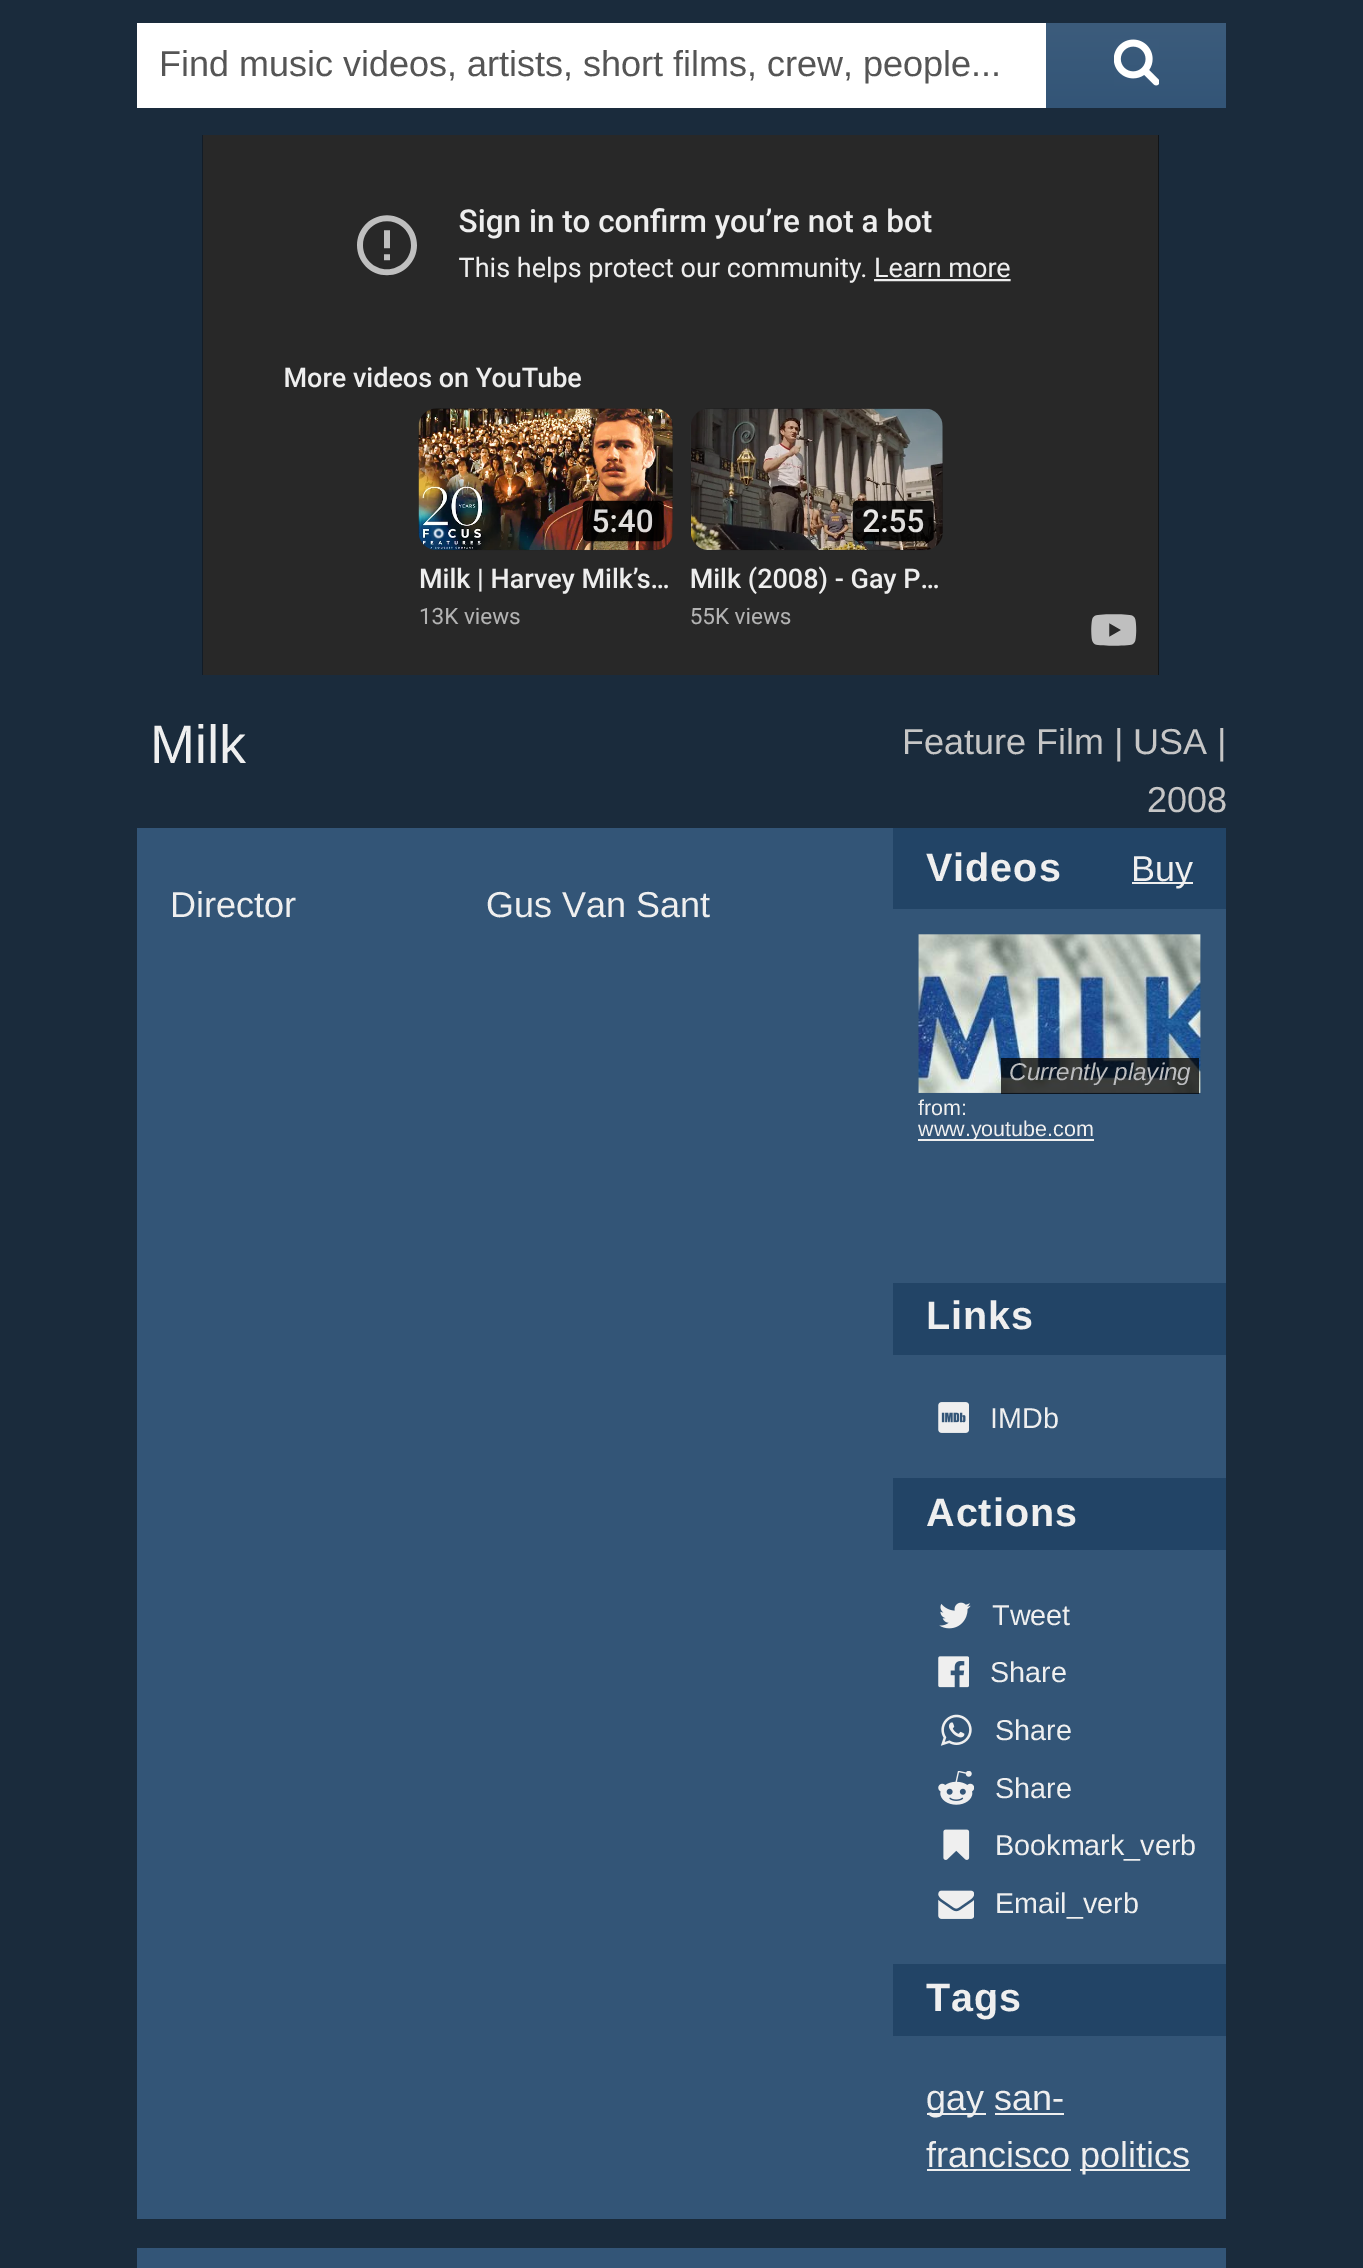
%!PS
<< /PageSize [1363 2268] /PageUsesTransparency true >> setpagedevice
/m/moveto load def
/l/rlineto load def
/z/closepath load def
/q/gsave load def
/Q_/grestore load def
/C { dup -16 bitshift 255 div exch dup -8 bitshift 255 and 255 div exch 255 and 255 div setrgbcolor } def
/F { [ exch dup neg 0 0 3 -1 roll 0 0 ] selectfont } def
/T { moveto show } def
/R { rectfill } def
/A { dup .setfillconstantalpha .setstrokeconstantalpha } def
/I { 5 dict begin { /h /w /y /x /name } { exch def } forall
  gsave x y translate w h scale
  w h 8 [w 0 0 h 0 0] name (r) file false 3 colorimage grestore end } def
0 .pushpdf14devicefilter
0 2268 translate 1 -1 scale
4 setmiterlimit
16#1A2B3C C
0 0 1363 2268 R
16#FFFFFF C
137 23 909 85 R
/LiberationSans-Regular 36 F
16#555555 C
(Find music videos, artists, short films, crew, people...) 159 76 T
q 1046 23 m 180 0 l 0 85 l -180 0 l z clip newpath
<< /ShadingType 2 /ColorSpace /DeviceRGB /Coords [1136 22 1136 108] /Extend [true true] /Function << /FunctionType 2 /Domain [0 1] /C0 [.235 .361 .486] /C1 [.2 .333 .467] /N 1 >> >> shfill Q_
(1.rgb) 1114 39 45 47 I
(2.rgb) 202 135 957 540 I
/LiberationSans-Regular 54 F
16#EFEFEF C
(Milk) 150 763 T
/LiberationSans-Regular 36 F
16#C6C6C6 C
(Feature Film | USA |) 902 754 T
(2008) 1147 812 T
16#335577 C
137 828 1089 1391 R
16#EFEFEF C
(Director) 170 917 T
(Gus Van Sant) 486 917 T
16#224466 C
893 828 333 81 R
/LiberationSans-Bold 39.5 F
16#EFEFEF C
926 881 m 1 0 (Videos) ashow
1132 882 61 2 R
/LiberationSans-Regular 36 F
(Buy) 1131 881 T
(3.rgb) 918 934 283 159 I
0.75 A
16#000000 C
1001 1058 198 36 R
/LiberationSans-Italic 24.25 F
1 A
16#BCBDBF C
(Currently playing) 1009 1080 T
/LiberationSans-Regular 21.5 F
16#EFEFEF C
(from:) 918 1115 T
918 1139 176 2 R
(www.youtube.com) 918 1136 T
16#224466 C
893 1283 333 72 R
/LiberationSans-Bold 39.5 F
16#EFEFEF C
926 1329 m 1 0 (Links) ashow
(4.rgb) 938 1402 31 31 I
/LiberationSans-Regular 28.75 F
(IMDb) 990 1428 T
16#224466 C
893 1478 333 72 R
/LiberationSans-Bold 39.5 F
16#EFEFEF C
926 1526 m 1 0 (Actions) ashow
(5.rgb) 939 1602 32 27 I
/LiberationSans-Regular 28.75 F
(Tweet) 992 1625 T
(6.rgb) 938 1656 31 32 I
(Share) 990 1682 T
(7.rgb) 940 1714 32 32 I
(Share) 995 1740 T
(8.rgb) 938 1771 36 34 I
(Share) 995 1798 T
(9.rgb) 943 1829 27 31 I
(Bookmark_verb) 995 1855 T
(10.rgb) 938 1890 36 29 I
(Email_verb) 995 1913 T
16#224466 C
893 1964 333 72 R
/LiberationSans-Bold 39.5 F
16#EFEFEF C
926 2011 m 1 0 (Tags) ashow
927 2113 59 2 R
/LiberationSans-Regular 36 F
(gay san-) 926 2110 T
(francisco) 926 2167 T
995 2113 69 2 R
927 2169 144 2 R
1080 2169 110 2 R
(politics) 1080 2167 T
16#335577 C
137 2248 1089 20 R
.poppdf14devicefilter showpage
